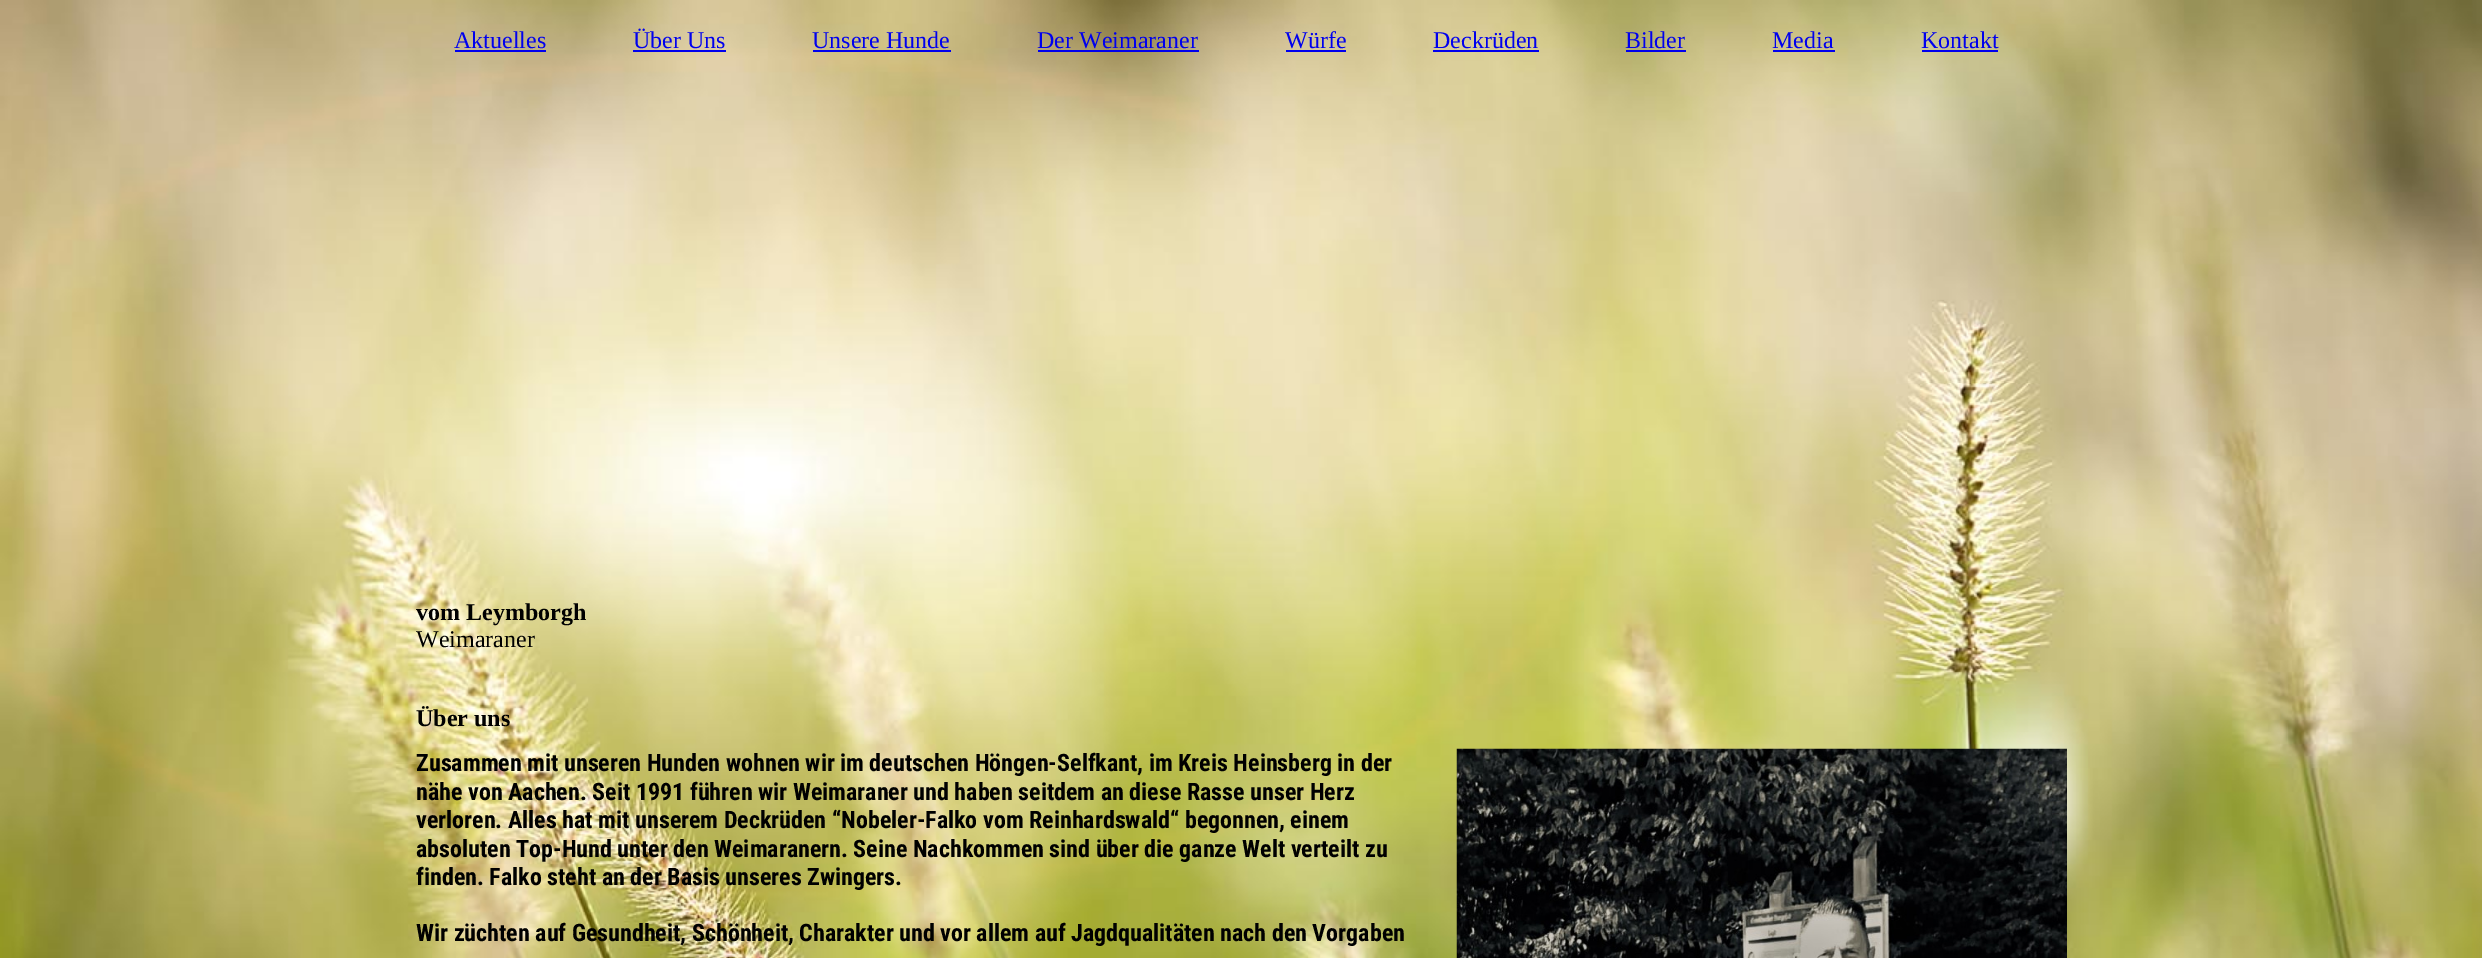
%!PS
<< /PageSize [2482 958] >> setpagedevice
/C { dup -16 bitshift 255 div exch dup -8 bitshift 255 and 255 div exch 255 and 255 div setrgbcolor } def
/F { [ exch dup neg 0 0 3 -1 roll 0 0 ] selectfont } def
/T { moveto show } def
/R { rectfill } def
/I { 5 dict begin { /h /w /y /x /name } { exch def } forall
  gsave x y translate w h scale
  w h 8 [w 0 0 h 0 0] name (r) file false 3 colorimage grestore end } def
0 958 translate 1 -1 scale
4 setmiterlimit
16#FFFFFF C
0 0 2482 958 R
(1.rgb) 0 0 2482 958 I
/LiberationSerif-Regular 24 F
16#0000EE C
(Aktuelles) 454 48 T
455 50 91 2 R
(Über Uns) 633 48 T
633 50 93 2 R
(Unsere Hunde) 812 48 T
813 50 138 2 R
(Der Weimaraner) 1037 48 T
1038 50 161 2 R
(Würfe) 1285 48 T
1286 50 60 2 R
(Deckrüden) 1433 48 T
1433 50 106 2 R
(Bilder) 1625 48 T
1626 50 60 2 R
(Media) 1772 48 T
1773 50 62 2 R
(Kontakt) 1921 48 T
1922 50 76 2 R
/LiberationSerif-Bold 24 F
16#000000 C
(vom Leymborgh) 416 620 T
/LiberationSerif-Regular 24 F
(Weimaraner) 416 647 T
/LiberationSerif-Bold 24 F
(Über uns) 416 726 T
/RobotoCondensed-Bold 24 F
(Zusammen mit unseren Hunden wohnen wir im deutschen Höngen-Selfkant, im Kreis Heinsberg in der) 416 771 T
(nähe von Aachen. Seit 1991 führen wir Weimaraner und haben seitdem an diese Rasse unser Herz) 416 800 T
(verloren. Alles hat mit unserem Deckrüden “Nobeler-Falko vom Reinhardswald“ begonnen, einem) 416 828 T
(absoluten Top-Hund unter den Weimaranern. Seine Nachkommen sind über die ganze Welt verteilt zu) 416 857 T
(finden. Falko steht an der Basis unseres Zwingers.) 416 885 T
(Wir züchten auf Gesundheit, Schönheit, Charakter und vor allem auf Jagdqualitäten nach den Vorgaben) 416 941 T
(2.rgb) 1456 748 611 210 I
showpage
